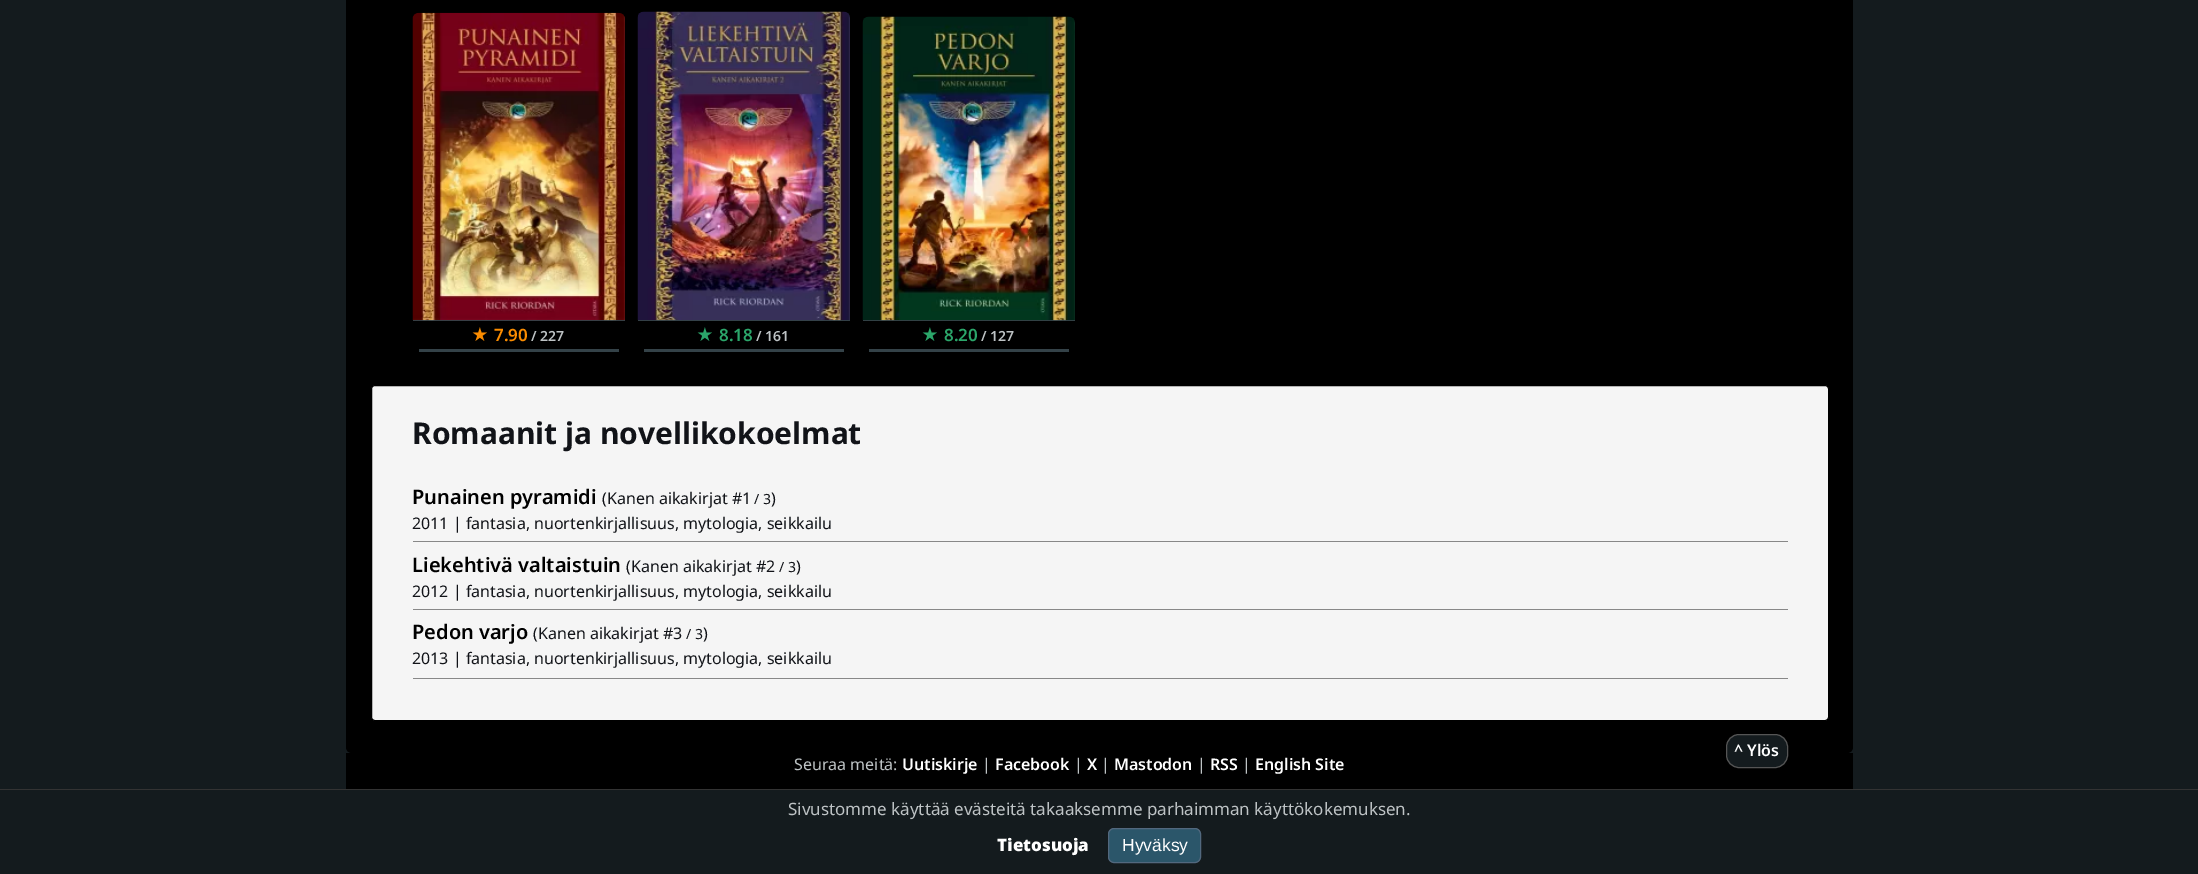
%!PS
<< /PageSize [2198 874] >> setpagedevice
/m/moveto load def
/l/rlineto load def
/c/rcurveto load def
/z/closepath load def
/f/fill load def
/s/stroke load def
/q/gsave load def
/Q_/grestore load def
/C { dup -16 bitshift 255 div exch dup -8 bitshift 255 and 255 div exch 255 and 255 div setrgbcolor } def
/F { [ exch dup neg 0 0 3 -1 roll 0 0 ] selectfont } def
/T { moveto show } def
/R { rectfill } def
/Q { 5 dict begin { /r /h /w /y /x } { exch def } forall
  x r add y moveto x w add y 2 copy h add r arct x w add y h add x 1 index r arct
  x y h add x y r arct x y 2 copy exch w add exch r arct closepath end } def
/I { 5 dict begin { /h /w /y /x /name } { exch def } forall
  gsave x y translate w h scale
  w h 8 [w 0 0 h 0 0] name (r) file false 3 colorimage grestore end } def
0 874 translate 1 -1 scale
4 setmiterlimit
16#141B1E C
0 0 2198 874 R
16#000000 C
346 -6 m 1507 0 l 0 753 l 0 3.5 -2.5 6 -6 6 c -1495 0 l -3.5 0 -6 -2.5 -6 -6 c z f
16#344248 C
419 349 200 3 R
413 320 212 1 R
(1.rgb) 412 12 213 309 I
/Inter-SemiBold 17 F
16#FB8C00 C
(★) 471 341 T
/NotoSans-SemiBold 17 F
(7.90) 494 341 T
/NotoSans-SemiBold 14 F
16#BEC3C5 C
(/ 227) 531 341 T
16#344248 C
644 349 200 3 R
638 320 212 1 R
(2.rgb) 637 11 213 310 I
/Inter-SemiBold 17 F
16#2BA66A C
(★) 696 341 T
/NotoSans-SemiBold 17 F
(8.18) 719 341 T
/NotoSans-SemiBold 14 F
16#BEC3C5 C
(/ 161) 756 341 T
16#344248 C
869 349 200 3 R
863 320 212 1 R
(3.rgb) 862 16 213 305 I
/Inter-SemiBold 17 F
16#2BA66A C
(★) 921 341 T
/NotoSans-SemiBold 17 F
(8.20) 944 341 T
/NotoSans-SemiBold 14 F
16#BEC3C5 C
(/ 127) 981 341 T
16#F5F5F5 C
371.5 385.5 1457 335 3.5 Q q f Q_
16#000000 C
s
/NotoSans-Bold 30 F
16#111318 C
(Romaanit ja novellikokoelmat) 412 444 T
16#888888 C
413 541 1375 1 R
/NotoSans-SemiBold 20 F
16#000000 C
(Punainen pyramidi) 412 504 T
/NotoSans-Regular 16 F
16#111318 C
(\(Kanen aikakirjat #1) 602 504 T
/NotoSans-Regular 14 F
(/ 3) 754 504 T
/NotoSans-Regular 16 F
(\)) 771 504 T
(2011 | fantasia, nuortenkirjallisuus, mytologia, seikkailu) 412 529 T
16#888888 C
413 609 1375 1 R
/NotoSans-SemiBold 20 F
16#000000 C
(Liekehtivä valtaistuin) 412 572 T
/NotoSans-Regular 16 F
16#111318 C
(\(Kanen aikakirjat #2) 626 572 T
/NotoSans-Regular 14 F
(/ 3) 779 572 T
/NotoSans-Regular 16 F
(\)) 796 572 T
(2012 | fantasia, nuortenkirjallisuus, mytologia, seikkailu) 412 597 T
16#888888 C
413 678 1375 1 R
/NotoSans-SemiBold 20 F
16#000000 C
(Pedon varjo) 412 639 T
/NotoSans-Regular 16 F
16#111318 C
(\(Kanen aikakirjat #3) 533 639 T
/NotoSans-Regular 14 F
(/ 3) 686 639 T
/NotoSans-Regular 16 F
(\)) 703 639 T
(2013 | fantasia, nuortenkirjallisuus, mytologia, seikkailu) 412 664 T
16#000000 C
346 753 1507 36 R
16#141B1E C
1726.5 734.5 61 33 12.5 Q q f Q_
16#555555 C
s
/NotoSans-SemiBold 16 F
16#FFFFFF C
(^ Ylös) 1734 756 T
/NotoSans-Regular 16 F
16#BEC3C5 C
(Seuraa meitä:) 794 770 T
/NotoSans-SemiBold 16 F
16#FFFFFF C
(Uutiskirje) 902 770 T
/NotoSans-Regular 16 F
16#BEC3C5 C
(|) 982 770 T
/NotoSans-SemiBold 16 F
16#FFFFFF C
(Facebook) 995 770 T
/NotoSans-Regular 16 F
16#BEC3C5 C
(|) 1074 770 T
/NotoSans-SemiBold 16 F
16#FFFFFF C
(X) 1087 770 T
/NotoSans-Regular 16 F
16#BEC3C5 C
(|) 1101 770 T
/NotoSans-SemiBold 16 F
16#FFFFFF C
(Mastodon) 1114 770 T
/NotoSans-Regular 16 F
16#BEC3C5 C
(|) 1197 770 T
/NotoSans-SemiBold 16 F
16#FFFFFF C
(RSS) 1210 770 T
/NotoSans-Regular 16 F
16#BEC3C5 C
(|) 1242 770 T
/NotoSans-SemiBold 16 F
16#FFFFFF C
(English Site) 1255 770 T
16#333333 C
0 789 2198 1 R
/NotoSans-Regular 17 F
16#BEC3C5 C
(Sivustomme käyttää evästeitä takaaksemme parhaimman käyttökokemuksen.) 788 815 T
/NotoSans-Black 17 F
16#FFFFFF C
(Tietosuoja) 997 851 T
16#2B566A C
1108.5 828.5 92 34 5.5 Q q f Q_
16#52687E C
s
/LiberationSans-Regular 17.5 F
16#FFFFFF C
(Hyväksy) 1122 851 T
showpage
